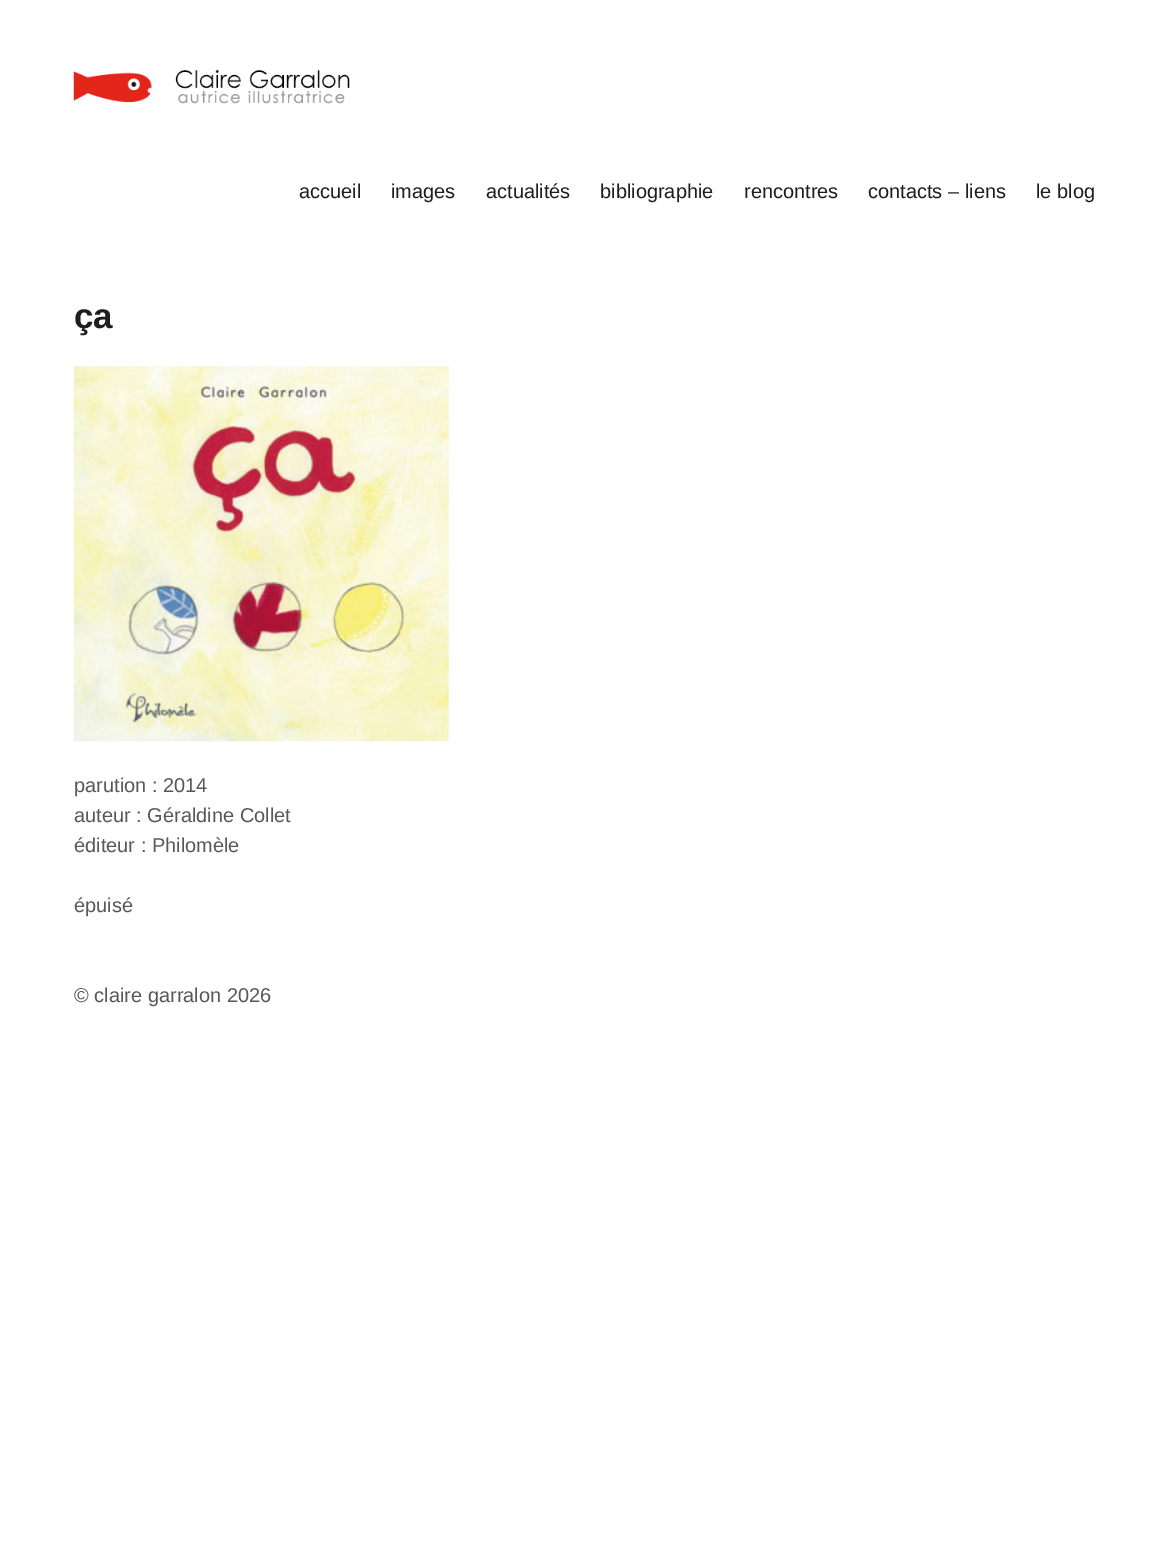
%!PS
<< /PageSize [1168 1558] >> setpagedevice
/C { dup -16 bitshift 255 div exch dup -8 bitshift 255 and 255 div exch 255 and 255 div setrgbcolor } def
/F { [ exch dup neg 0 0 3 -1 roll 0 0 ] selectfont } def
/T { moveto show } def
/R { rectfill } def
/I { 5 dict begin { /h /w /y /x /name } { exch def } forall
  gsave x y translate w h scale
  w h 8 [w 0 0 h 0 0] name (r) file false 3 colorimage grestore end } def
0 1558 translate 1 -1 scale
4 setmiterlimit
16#FFFFFF C
0 0 1168 1558 R
(1.rgb) 73 69 277 35 I
/LiberationSans-Regular 20 F
16#1E1E1E C
(accueil) 299 198 T
(images) 391 198 T
(actualités) 486 198 T
(bibliographie) 600 198 T
(rencontres) 744 198 T
(contacts – liens) 868 198 T
(le blog) 1036 198 T
/LiberationSans-Bold 35 F
(ça) 74 328 T
(2.rgb) 73 366 376 376 I
/LiberationSans-Regular 20 F
16#585858 C
(parution : 2014) 74 792 T
(auteur : Géraldine Collet) 74 822 T
(éditeur : Philomèle) 74 852 T
(épuisé) 74 912 T
(© claire garralon 2026) 74 1002 T
showpage
